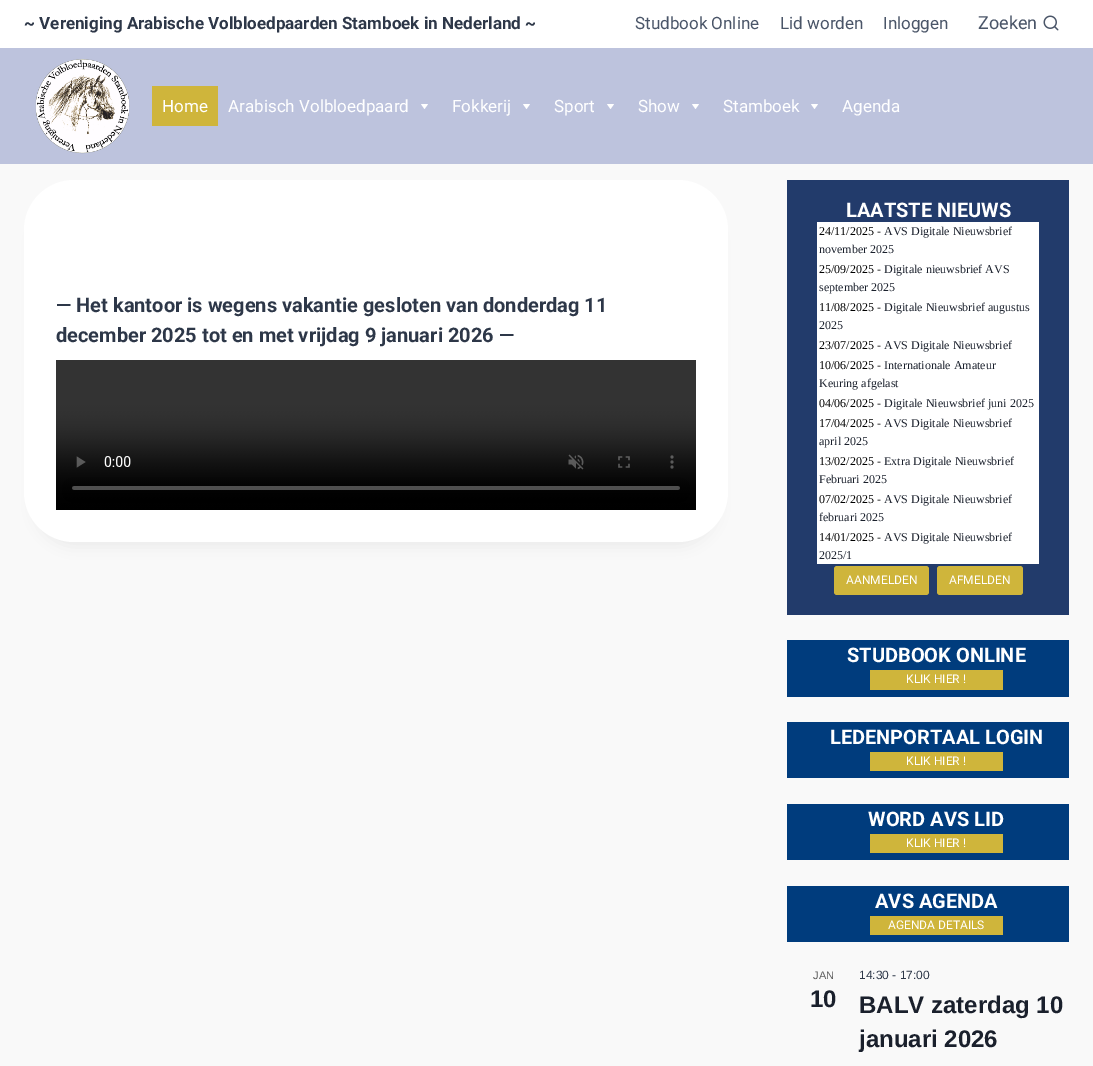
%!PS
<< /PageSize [1093 1066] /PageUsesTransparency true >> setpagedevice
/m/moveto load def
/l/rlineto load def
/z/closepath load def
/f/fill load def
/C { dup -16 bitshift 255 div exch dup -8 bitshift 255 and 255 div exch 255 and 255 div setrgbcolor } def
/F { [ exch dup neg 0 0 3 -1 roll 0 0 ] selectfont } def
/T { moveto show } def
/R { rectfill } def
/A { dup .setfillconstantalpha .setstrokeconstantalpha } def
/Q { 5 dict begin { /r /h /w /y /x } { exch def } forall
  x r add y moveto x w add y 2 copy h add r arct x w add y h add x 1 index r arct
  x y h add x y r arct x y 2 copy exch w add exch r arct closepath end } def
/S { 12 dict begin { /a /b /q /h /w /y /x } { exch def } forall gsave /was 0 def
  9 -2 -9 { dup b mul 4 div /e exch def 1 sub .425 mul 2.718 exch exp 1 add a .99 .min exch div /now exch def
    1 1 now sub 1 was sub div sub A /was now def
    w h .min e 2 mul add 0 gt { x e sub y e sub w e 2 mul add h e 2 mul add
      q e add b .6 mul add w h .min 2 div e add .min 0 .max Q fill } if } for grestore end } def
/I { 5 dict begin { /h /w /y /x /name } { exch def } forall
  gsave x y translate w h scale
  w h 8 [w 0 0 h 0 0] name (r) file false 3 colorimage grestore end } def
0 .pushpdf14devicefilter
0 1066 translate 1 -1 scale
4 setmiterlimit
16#F9F9F9 C
0 0 1093 1066 R
16#BDC3DD C
0 48 1093 116 R
16#FFFFFF C
0 0 1093 48 R
/Roboto-Bold 17 F
16#2D3748 C
(~ Vereniging Arabische Volbloedpaarden Stamboek in Nederland ~) 24 29 T
/Roboto-Regular 17 F
16#4A5568 C
(Studbook Online) 635 29 T
(Lid worden) 780 29 T
(Inloggen) 883 29 T
/Roboto-Regular 18 F
(Zoeken) 978 29 T
(1.rgb) 1043 15 16 16 I
(2.rgb) 35 59 95 95 I
16#CFB53B C
152 86 66 40 R
/Roboto-Regular 17 F
16#FFFFFF C
(Home) 162 112 T
(Arabisch Volbloedpaard) 228 112 T
428 104 m -3.5 5 l -3.5 -5 l z f
(Fokkerij) 452 112 T
530 104 m -3.5 5 l -3.5 -5 l z f
(Sport) 554 112 T
614 104 m -3.5 5 l -3.5 -5 l z f
(Show) 638 112 T
699 104 m -3.5 5 l -3.5 -5 l z f
(Stamboek) 723 112 T
818 104 m -3.5 5 l -3.5 -5 l z f
(Agenda) 842 112 T
16#000000 C
34 205 684 342 40 7.5 .05 S
16#FFFFFF C
24 180 704 362 50 Q f
/Roboto-Bold 20 F
16#2D3748 C
(— Het kantoor is wegens vakantie gesloten van donderdag 11) 56 312 T
(december 2025 tot en met vrijdag 9 januari 2026 —) 56 342 T
(3.rgb) 56 360 640 150 I
16#223B6B C
787 180 282 435 R
16#FFFFFF C
(LAATSTE NIEUWS) 846 217 T
817 222 222 342 R
/LiberationSerif-Regular 12 F
16#000000 C
(24/11/2025 -) 819 235 T
16#1A202C C
(AVS Digitale Nieuwsbrief) 884 235 T
(november 2025) 819 253 T
16#000000 C
(25/09/2025 -) 819 273 T
16#1A202C C
(Digitale nieuwsbrief AVS) 884 273 T
(september 2025) 819 291 T
16#000000 C
(11/08/2025 -) 819 311 T
16#1A202C C
(Digitale Nieuwsbrief augustus) 884 311 T
(2025) 819 329 T
16#000000 C
(23/07/2025 -) 819 349 T
16#1A202C C
(AVS Digitale Nieuwsbrief) 884 349 T
16#000000 C
(10/06/2025 -) 819 369 T
16#1A202C C
(Internationale Amateur) 884 369 T
(Keuring afgelast) 819 387 T
16#000000 C
(04/06/2025 -) 819 407 T
16#1A202C C
(Digitale Nieuwsbrief juni 2025) 884 407 T
16#000000 C
(17/04/2025 -) 819 427 T
16#1A202C C
(AVS Digitale Nieuwsbrief) 884 427 T
(april 2025) 819 445 T
16#000000 C
(13/02/2025 -) 819 465 T
16#1A202C C
(Extra Digitale Nieuwsbrief) 884 465 T
(Februari 2025) 819 483 T
16#000000 C
(07/02/2025 -) 819 503 T
16#1A202C C
(AVS Digitale Nieuwsbrief) 884 503 T
(februari 2025) 819 521 T
16#000000 C
(14/01/2025 -) 819 541 T
16#1A202C C
(AVS Digitale Nieuwsbrief) 884 541 T
(2025/1) 819 559 T
16#CFB53B C
834 566 95 29 3 Q f
/Roboto-Regular 12 F
16#FFFFFF C
(AANMELDEN) 846 584 T
16#CFB53B C
937 566 86 29 3 Q f
16#FFFFFF C
(AFMELDEN) 949 584 T
16#003C7D C
787 640 282 57 R
/Roboto-Bold 20 F
16#FFFFFF C
(STUDBOOK ONLINE) 847 662 T
16#CFB53B C
870 670 133 20 R
/Roboto-Regular 12 F
16#FFFFFF C
(KLIK HIER !) 906 683 T
16#003C7D C
787 722 282 56 R
/Roboto-Bold 20 F
16#FFFFFF C
(LEDENPORTAAL LOGIN) 830 744 T
16#CFB53B C
870 752 133 19 R
/Roboto-Regular 12 F
16#FFFFFF C
(KLIK HIER !) 906 765 T
16#003C7D C
787 804 282 56 R
/Roboto-Bold 20 F
16#FFFFFF C
(WORD AVS LID) 868 826 T
16#CFB53B C
870 834 133 19 R
/Roboto-Regular 12 F
16#FFFFFF C
(KLIK HIER !) 906 847 T
16#003C7D C
787 886 282 56 R
/Roboto-Bold 20 F
16#FFFFFF C
(AVS AGENDA) 875 908 T
16#CFB53B C
870 916 133 19 R
/Roboto-Regular 12 F
16#FFFFFF C
(AGENDA DETAILS) 888 929 T
/LiberationSans-Regular 11 F
16#5D5D5D C
(JAN) 813 979 T
/LiberationSans-Bold 24 F
16#1A202C C
(10) 810 1007 T
/LiberationSans-Regular 12 F
16#2D3748 C
(14:30 - 17:00) 859 979 T
/LiberationSans-Bold 24 F
16#1A202C C
(BALV zaterdag 10) 859 1013 T
(januari 2026) 859 1047 T
.poppdf14devicefilter showpage
